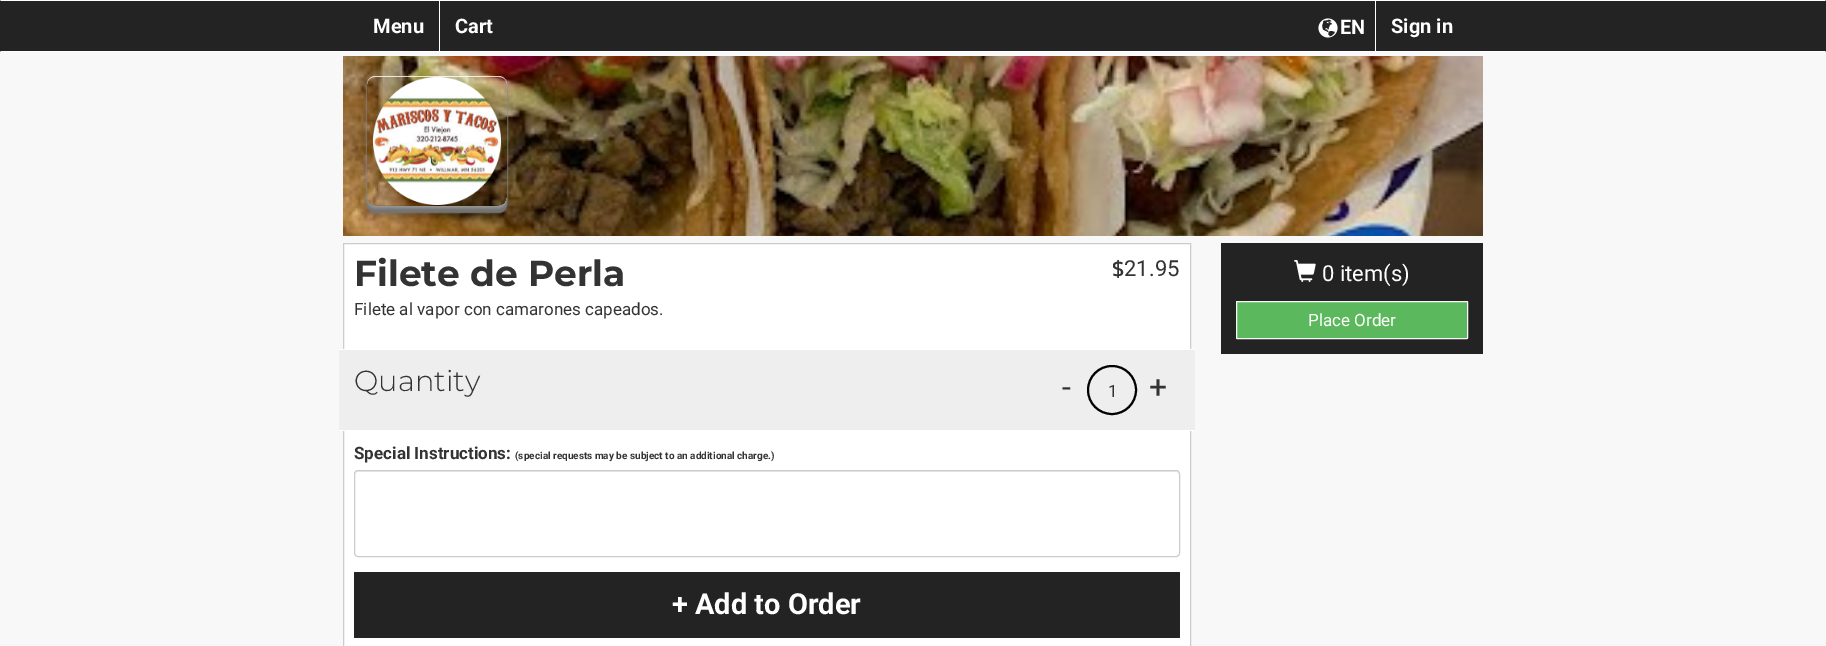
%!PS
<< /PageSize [1826 646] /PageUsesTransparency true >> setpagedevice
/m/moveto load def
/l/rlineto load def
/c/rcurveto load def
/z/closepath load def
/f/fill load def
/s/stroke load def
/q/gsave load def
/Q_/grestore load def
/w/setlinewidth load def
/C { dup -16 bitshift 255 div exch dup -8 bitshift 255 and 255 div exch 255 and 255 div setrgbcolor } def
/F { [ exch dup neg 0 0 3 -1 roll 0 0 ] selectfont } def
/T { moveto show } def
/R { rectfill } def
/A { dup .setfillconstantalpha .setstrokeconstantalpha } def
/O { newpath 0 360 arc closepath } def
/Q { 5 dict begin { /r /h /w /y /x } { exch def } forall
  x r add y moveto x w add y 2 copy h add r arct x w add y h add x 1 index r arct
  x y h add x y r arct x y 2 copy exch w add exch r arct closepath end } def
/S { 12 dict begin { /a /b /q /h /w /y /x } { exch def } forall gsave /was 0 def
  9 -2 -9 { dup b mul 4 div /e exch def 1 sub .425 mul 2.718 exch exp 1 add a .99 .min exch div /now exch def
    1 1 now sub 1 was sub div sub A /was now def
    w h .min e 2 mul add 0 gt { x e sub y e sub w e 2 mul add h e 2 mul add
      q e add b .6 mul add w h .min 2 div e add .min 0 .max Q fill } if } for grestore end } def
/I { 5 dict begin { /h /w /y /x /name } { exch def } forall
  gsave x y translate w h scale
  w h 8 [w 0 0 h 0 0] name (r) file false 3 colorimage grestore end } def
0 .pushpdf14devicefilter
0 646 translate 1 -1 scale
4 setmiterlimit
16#F8F8F8 C
0 0 1826 646 R
16#232323 C
0 0 1826 52 R
16#FFFFFF C
0 0 m 1826 0 l -1 1 l -1824 0 l z f
1826 52 m -1826 0 l 1 -1 l 1824 0 l z f
439 1 1 50 R
/Roboto-Bold 20 F
(Menu) 373 33 T
(Cart) 455 33 T
(1.rgb) 1318 18 20 20 I
(EN) 1340 34 T
1375 1 1 50 R
(Sign in) 1391 33 T
(2.rgb) 343 56 1140 180 I
q
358 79 m 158 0 l 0 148 l -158 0 l z 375 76 m 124 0 l 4.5 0 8 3.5 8 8 c 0 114 l 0 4.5 -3.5 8 -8 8 c -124 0 l -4.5 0 -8 -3.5 -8 -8 c 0 -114 l 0 -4.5 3.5 -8 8 -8 c z eoclip newpath
16#000000 C
367 88 140 130 8 2.5 .2 S
Q_
q
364 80 m 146 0 l 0 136 l -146 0 l z 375 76 m 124 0 l 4.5 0 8 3.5 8 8 c 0 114 l 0 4.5 -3.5 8 -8 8 c -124 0 l -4.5 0 -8 -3.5 -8 -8 c 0 -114 l 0 -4.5 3.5 -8 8 -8 c z eoclip newpath
16#737373 C
367 83 140 130 8 .5 1 S
Q_
q
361 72 m 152 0 l 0 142 l -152 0 l z 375 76 m 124 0 l 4.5 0 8 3.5 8 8 c 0 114 l 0 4.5 -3.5 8 -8 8 c -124 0 l -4.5 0 -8 -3.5 -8 -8 c 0 -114 l 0 -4.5 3.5 -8 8 -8 c z eoclip newpath
16#999999 C
367 78 140 130 8 1.5 1 S
Q_
(3.rgb) 373 77 128 128 I
0.8 A
375 76 m -4 0 -8 4 -8 8 c 0 -4 4 -7 8 -7 c 124 0 l 4 0 8 3 8 7 c 0 -4 -4 -8 -8 -8 c z f
0.1 A
16#000000 C
499 206 m 4 0 8 -4 8 -8 c 0 4 -4 7 -8 7 c -124 0 l -4 0 -8 -3 -8 -7 c 0 4 4 8 8 8 c z f
1 A
16#FFFFFF C
343.5 243.5 m 847 0 l 0 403 l -847 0 l z q f Q_
16#CCCCCC C
s
/Montserrat-Bold 36 F
16#333333 C
(Filete de Perla) 354 286 T
/Roboto-Regular 17 F
(Filete al vapor con camarones capeados.) 354 315 T
/Kanit-Regular 22 F
($) 1112 276 T
/Roboto-Regular 22 F
(21.95) 1124 276 T
16#EEEEEE C
339 350 856 80 R
16#FFFFFF C
339 349 856 1 R
339 430 856 1 R
/Montserrat-Light 29 F
16#333333 C
(Quantity) 354 391 T
/Roboto-Regular 32 F
(-) 1062 398 T
16#000000 C
2 w
1112 390 24 O s
/Roboto-Regular 17 F
16#333333 C
(1) 1108 397 T
/Roboto-Regular 32 F
(+) 1149 398 T
/Roboto-Bold 17 F
(Special Instructions:) 354 459 T
/Roboto-Bold 10 F
(\(special requests may be subject to an additional charge.\)) 515 459 T
16#ECECEC C
358 472 m 818 0 l 2 0 3 1 3 3 c 0 -2 -1 -4 -3 -4 c -818 0 l -2 0 -3 2 -3 4 c 0 -2 1 -3 3 -3 c z f
16#CCCCCC C
1 w
354.5 470.5 825 86 3.5 Q s
16#232323 C
354 572 826 66 1 Q f
/Roboto-Bold 29 F
16#FFFFFF C
(+ Add to Order) 672 614 T
16#232323 C
1221 243 262 111 R
(4.rgb) 1294 260 22 22 I
/Roboto-Regular 22 F
16#FFFFFF C
(0 item\(s\)) 1322 281 T
16#5CB85C C
1236.5 301.5 231 37 .5 Q q f Q_
16#F8F8F8 C
s
/Roboto-Regular 17 F
16#FFFFFF C
(Place Order) 1308 326 T
.poppdf14devicefilter showpage
